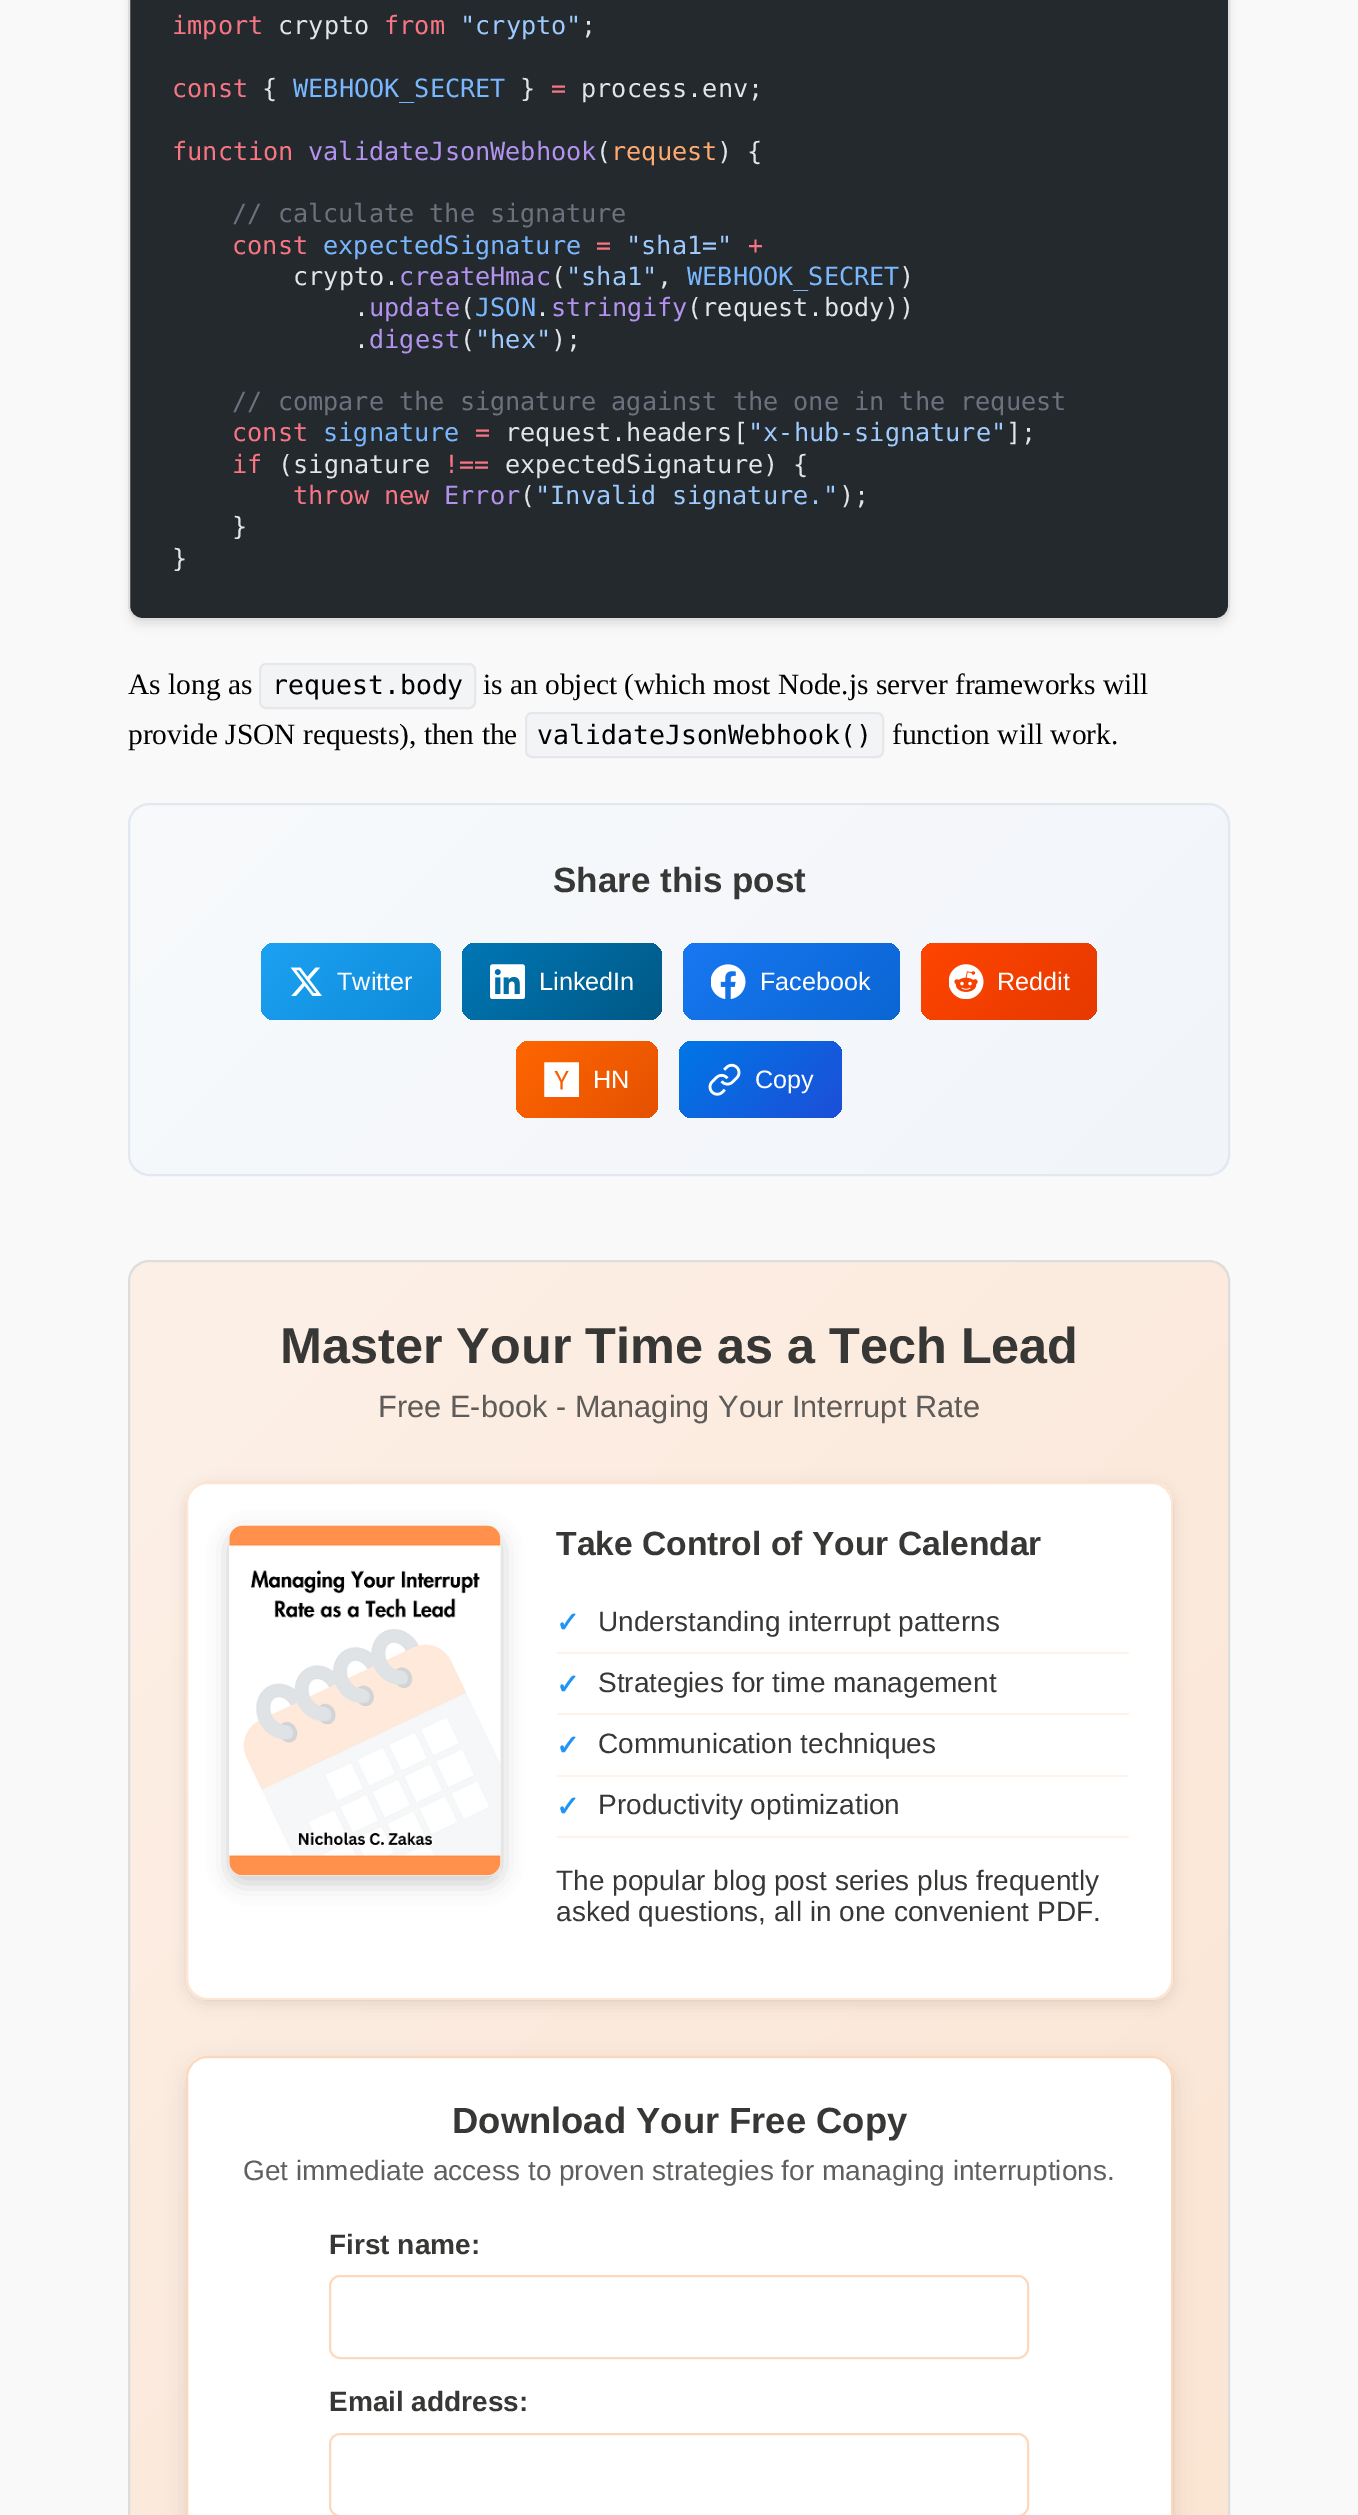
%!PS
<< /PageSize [1358 2515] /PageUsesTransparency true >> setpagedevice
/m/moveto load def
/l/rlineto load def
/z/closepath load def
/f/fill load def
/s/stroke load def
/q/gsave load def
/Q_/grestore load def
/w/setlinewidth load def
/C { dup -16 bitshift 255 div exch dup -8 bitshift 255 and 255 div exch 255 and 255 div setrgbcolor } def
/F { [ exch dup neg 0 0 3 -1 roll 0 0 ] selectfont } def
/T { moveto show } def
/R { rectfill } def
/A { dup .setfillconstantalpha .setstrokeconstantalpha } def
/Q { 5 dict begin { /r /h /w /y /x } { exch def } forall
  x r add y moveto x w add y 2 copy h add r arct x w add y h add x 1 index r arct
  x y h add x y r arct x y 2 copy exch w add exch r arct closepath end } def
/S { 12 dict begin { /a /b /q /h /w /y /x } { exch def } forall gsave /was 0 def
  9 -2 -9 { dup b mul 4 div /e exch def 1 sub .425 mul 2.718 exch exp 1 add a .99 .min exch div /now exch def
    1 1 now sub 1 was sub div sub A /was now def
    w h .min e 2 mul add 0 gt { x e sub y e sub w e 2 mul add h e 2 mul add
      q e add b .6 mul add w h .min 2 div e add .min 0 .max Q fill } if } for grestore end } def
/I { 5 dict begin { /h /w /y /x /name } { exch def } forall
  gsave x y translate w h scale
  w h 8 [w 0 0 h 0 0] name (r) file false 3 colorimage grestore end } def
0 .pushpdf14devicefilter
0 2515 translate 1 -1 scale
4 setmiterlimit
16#F9F9F9 C
0 0 1358 2515 R
16#000000 C
130 -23 1099 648 12 5 .1 S
16#24292E C
129 -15 1100 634 13 Q q f Q_
16#DDDDDD C
2 w
s
/DejaVuSansMono-Regular 25.2 F
16#F97583 C
(import) 172 34 T
16#E1E4E8 C
(crypto) 278 34 T
16#F97583 C
(from) 384 34 T
16#9ECBFF C
("crypto") 460 34 T
16#E1E4E8 C
(;) 581 34 T
16#F97583 C
(const) 172 97 T
16#E1E4E8 C
({) 262 97 T
16#79B8FF C
(WEBHOOK_SECRET) 293 97 T
16#E1E4E8 C
(}) 520 97 T
16#F97583 C
(=) 551 97 T
16#E1E4E8 C
(process.env;) 581 97 T
16#F97583 C
(function) 172 160 T
16#B392F0 C
(validateJsonWebhook) 308 160 T
16#E1E4E8 C
(\() 596 160 T
16#FFAB70 C
(request) 611 160 T
16#E1E4E8 C
(\) {) 717 160 T
16#6A737D C
(// calculate the signature) 232 222 T
16#F97583 C
(const) 232 254 T
16#79B8FF C
(expectedSignature) 323 254 T
16#F97583 C
(=) 596 254 T
16#9ECBFF C
("sha1=") 626 254 T
16#F97583 C
(+) 748 254 T
16#E1E4E8 C
(crypto.) 293 285 T
16#B392F0 C
(createHmac) 399 285 T
16#E1E4E8 C
(\() 551 285 T
16#9ECBFF C
("sha1") 566 285 T
16#E1E4E8 C
(,) 657 285 T
16#79B8FF C
(WEBHOOK_SECRET) 687 285 T
16#E1E4E8 C
(\)) 899 285 T
(.) 354 316 T
16#B392F0 C
(update) 369 316 T
16#E1E4E8 C
(\() 460 316 T
16#79B8FF C
(JSON) 475 316 T
16#E1E4E8 C
(.) 535 316 T
16#B392F0 C
(stringify) 551 316 T
16#E1E4E8 C
(\(request.body\)\)) 687 316 T
(.) 354 348 T
16#B392F0 C
(digest) 369 348 T
16#E1E4E8 C
(\() 460 348 T
16#9ECBFF C
("hex") 475 348 T
16#E1E4E8 C
(\);) 551 348 T
16#6A737D C
(// compare the signature against the one in the request) 232 410 T
16#F97583 C
(const) 232 441 T
16#79B8FF C
(signature) 323 441 T
16#F97583 C
(=) 475 441 T
16#E1E4E8 C
(request.headers[) 505 441 T
16#9ECBFF C
("x-hub-signature") 748 441 T
16#E1E4E8 C
(];) 1006 441 T
16#F97583 C
(if) 232 473 T
16#E1E4E8 C
(\(signature) 278 473 T
16#F97583 C
(!==) 444 473 T
16#E1E4E8 C
(expectedSignature\) {) 505 473 T
16#F97583 C
(throw new) 293 504 T
16#B392F0 C
(Error) 444 504 T
16#E1E4E8 C
(\() 520 504 T
16#9ECBFF C
("Invalid signature.") 535 504 T
16#E1E4E8 C
(\);) 839 504 T
(}) 232 535 T
(}) 172 567 T
/LiberationSerif-Regular 29.4 F
16#000000 C
(As long as) 128 694 T
16#F3F4F6 C
260 664 215 44 6 Q q f Q_
16#E5E7EB C
s
/DejaVuSansMono-Regular 26.5 F
16#000000 C
(request.body) 272 694 T
/LiberationSerif-Regular 29.4 F
(is an object \(which most Node.js server frameworks will) 483 694 T
(provide JSON requests\), then the) 128 744 T
16#F3F4F6 C
526 713 357 44 6 Q q f Q_
16#E5E7EB C
s
/DejaVuSansMono-Regular 26.5 F
16#000000 C
(validateJsonWebhook\(\)) 537 744 T
/LiberationSerif-Regular 29.4 F
(function will work.) 892 744 T
q
128 803 1102 373 21 Q clip newpath
q 130 805 m 1099 0 l 0 369 l -1099 0 l z clip newpath
<< /ShadingType 2 /ColorSpace /DeviceRGB /Coords [312 623 1046 1357] /Extend [true true] /Function << /FunctionType 2 /Domain [0 1] /C0 [.973 .98 .988] /C1 [.945 .961 .976] /N 1 >> >> shfill Q_
Q_
16#E2E8F0 C
129 804 1100 371 20 Q s
/LiberationSans-Bold 35 F
16#373736 C
(Share this post) 553 892 T
q 261 943 180 77 14 Q clip newpath
<< /ShadingType 2 /ColorSpace /DeviceRGB /Coords [287 917 415 1046] /Extend [true true] /Function << /FunctionType 2 /Domain [0 1] /C0 [.114 .631 .949] /C1 [.051 .545 .851] /N 1 >> >> shfill Q_
(1.rgb) 290 967 32 29 I
/LiberationSans-Regular 25.2 F
16#FFFFFF C
(Twitter) 337 990 T
q 462 943 200 77 14 Q clip newpath
<< /ShadingType 2 /ColorSpace /DeviceRGB /Coords [493 913 631 1051] /Extend [true true] /Function << /FunctionType 2 /Domain [0 1] /C0 [0 .467 .71] /C1 [0 .345 .522] /N 1 >> >> shfill Q_
(2.rgb) 490 964 35 35 I
(LinkedIn) 539 990 T
q 683 943 217 77 14 Q clip newpath
<< /ShadingType 2 /ColorSpace /DeviceRGB /Coords [718 908 865 1055] /Extend [true true] /Function << /FunctionType 2 /Domain [0 1] /C0 [.094 .467 .949] /C1 [.043 .4 .827] /N 1 >> >> shfill Q_
(3.rgb) 711 964 35 35 I
(Facebook) 760 990 T
q 921 943 176 77 14 Q clip newpath
<< /ShadingType 2 /ColorSpace /DeviceRGB /Coords [945 918 1072 1045] /Extend [true true] /Function << /FunctionType 2 /Domain [0 1] /C0 [1 .271 0] /C1 [.902 .224 0] /N 1 >> >> shfill Q_
(4.rgb) 949 964 35 35 I
(Reddit) 997 990 T
q 516 1041 142 77 14 Q clip newpath
<< /ShadingType 2 /ColorSpace /DeviceRGB /Coords [532 1025 642 1134] /Extend [true true] /Function << /FunctionType 2 /Domain [0 1] /C0 [1 .4 0] /C1 [.898 .318 0] /N 1 >> >> shfill Q_
(5.rgb) 544 1062 35 35 I
(HN) 593 1088 T
q 679 1041 163 77 14 Q clip newpath
<< /ShadingType 2 /ColorSpace /DeviceRGB /Coords [700 1020 820 1140] /Extend [true true] /Function << /FunctionType 2 /Domain [0 1] /C0 [0 .467 .902] /C1 [.114 .306 .847] /N 1 >> >> shfill Q_
(6.rgb) 708 1063 33 33 I
(Copy) 755 1088 T
q
128 1260 1102 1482 21 Q clip newpath
q 130 1262 m 1099 0 l 0 1253 l -1099 0 l z clip newpath
<< /ShadingType 2 /ColorSpace /DeviceRGB /Coords [35 1357 1323 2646] /Extend [true true] /Function << /FunctionType 2 /Domain [0 1] /C0 [.988 .941 .906] /C1 [.984 .894 .82] /N 1 >> >> shfill Q_
Q_
16#DDDDDD C
129 1261 1100 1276 20 Q s
/LiberationSans-Bold 50.4 F
16#373736 C
(Master Your Time as a Tech Lead) 280 1363 T
/LiberationSans-Regular 30.75 F
16#5E5B58 C
(Free E-book - Managing Your Interrupt Rate) 378 1417 T
16#000000 C
186 1486 987 518 21 7 .1 S
16#FFFFFF C
186 1482 987 518 21 Q f
0.2 A
16#F47F1F C
187 1483 985 516 20 Q s
1 A
16#000000 C
229 1533 272 350 14 10.5 .2 S
(7.rgb) 229 1525 272 351 I
/LiberationSans-Bold 33.6 F
16#373736 C
(Take Control of Your Calendar) 556 1555 T
16#FEF2E9 C
557 1652 572 2 R
/DejaVuSans-Bold 28 F
16#1F94F4 C
(✓) 556 1632 T
/LiberationSans-Regular 28 F
16#373736 C
(Understanding interrupt patterns) 598 1631 T
16#FEF2E9 C
557 1713 572 2 R
/DejaVuSans-Bold 28 F
16#1F94F4 C
(✓) 556 1694 T
/LiberationSans-Regular 28 F
16#373736 C
(Strategies for time management) 598 1692 T
16#FEF2E9 C
557 1775 572 2 R
/DejaVuSans-Bold 28 F
16#1F94F4 C
(✓) 556 1755 T
/LiberationSans-Regular 28 F
16#373736 C
(Communication techniques) 598 1753 T
16#FEF2E9 C
557 1836 572 2 R
/DejaVuSans-Bold 28 F
16#1F94F4 C
(✓) 556 1816 T
/LiberationSans-Regular 28 F
16#373736 C
(Productivity optimization) 598 1814 T
(The popular blog post series plus frequently) 556 1890 T
(asked questions, all in one convenient PDF.) 556 1921 T
16#000000 C
186 2063 987 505 21 10.5 .1 S
16#FFFFFF C
186 2056 987 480 21 Q f
0.3 A
16#F47F1F C
187 2057 985 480 20 Q s
/LiberationSans-Bold 36.4 F
1 A
16#373736 C
(Download Your Free Copy) 452 2133 T
/LiberationSans-Regular 28 F
16#5F5F5E C
(Get immediate access to proven strategies for managing interruptions.) 243 2180 T
/LiberationSans-Bold 28 F
16#373736 C
(First name:) 329 2254 T
16#FCD9BC C
330 2276 698 82 10 Q s
16#373736 C
(Email address:) 329 2411 T
16#FCD9BC C
330 2434 698 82 10 Q s
.poppdf14devicefilter showpage
